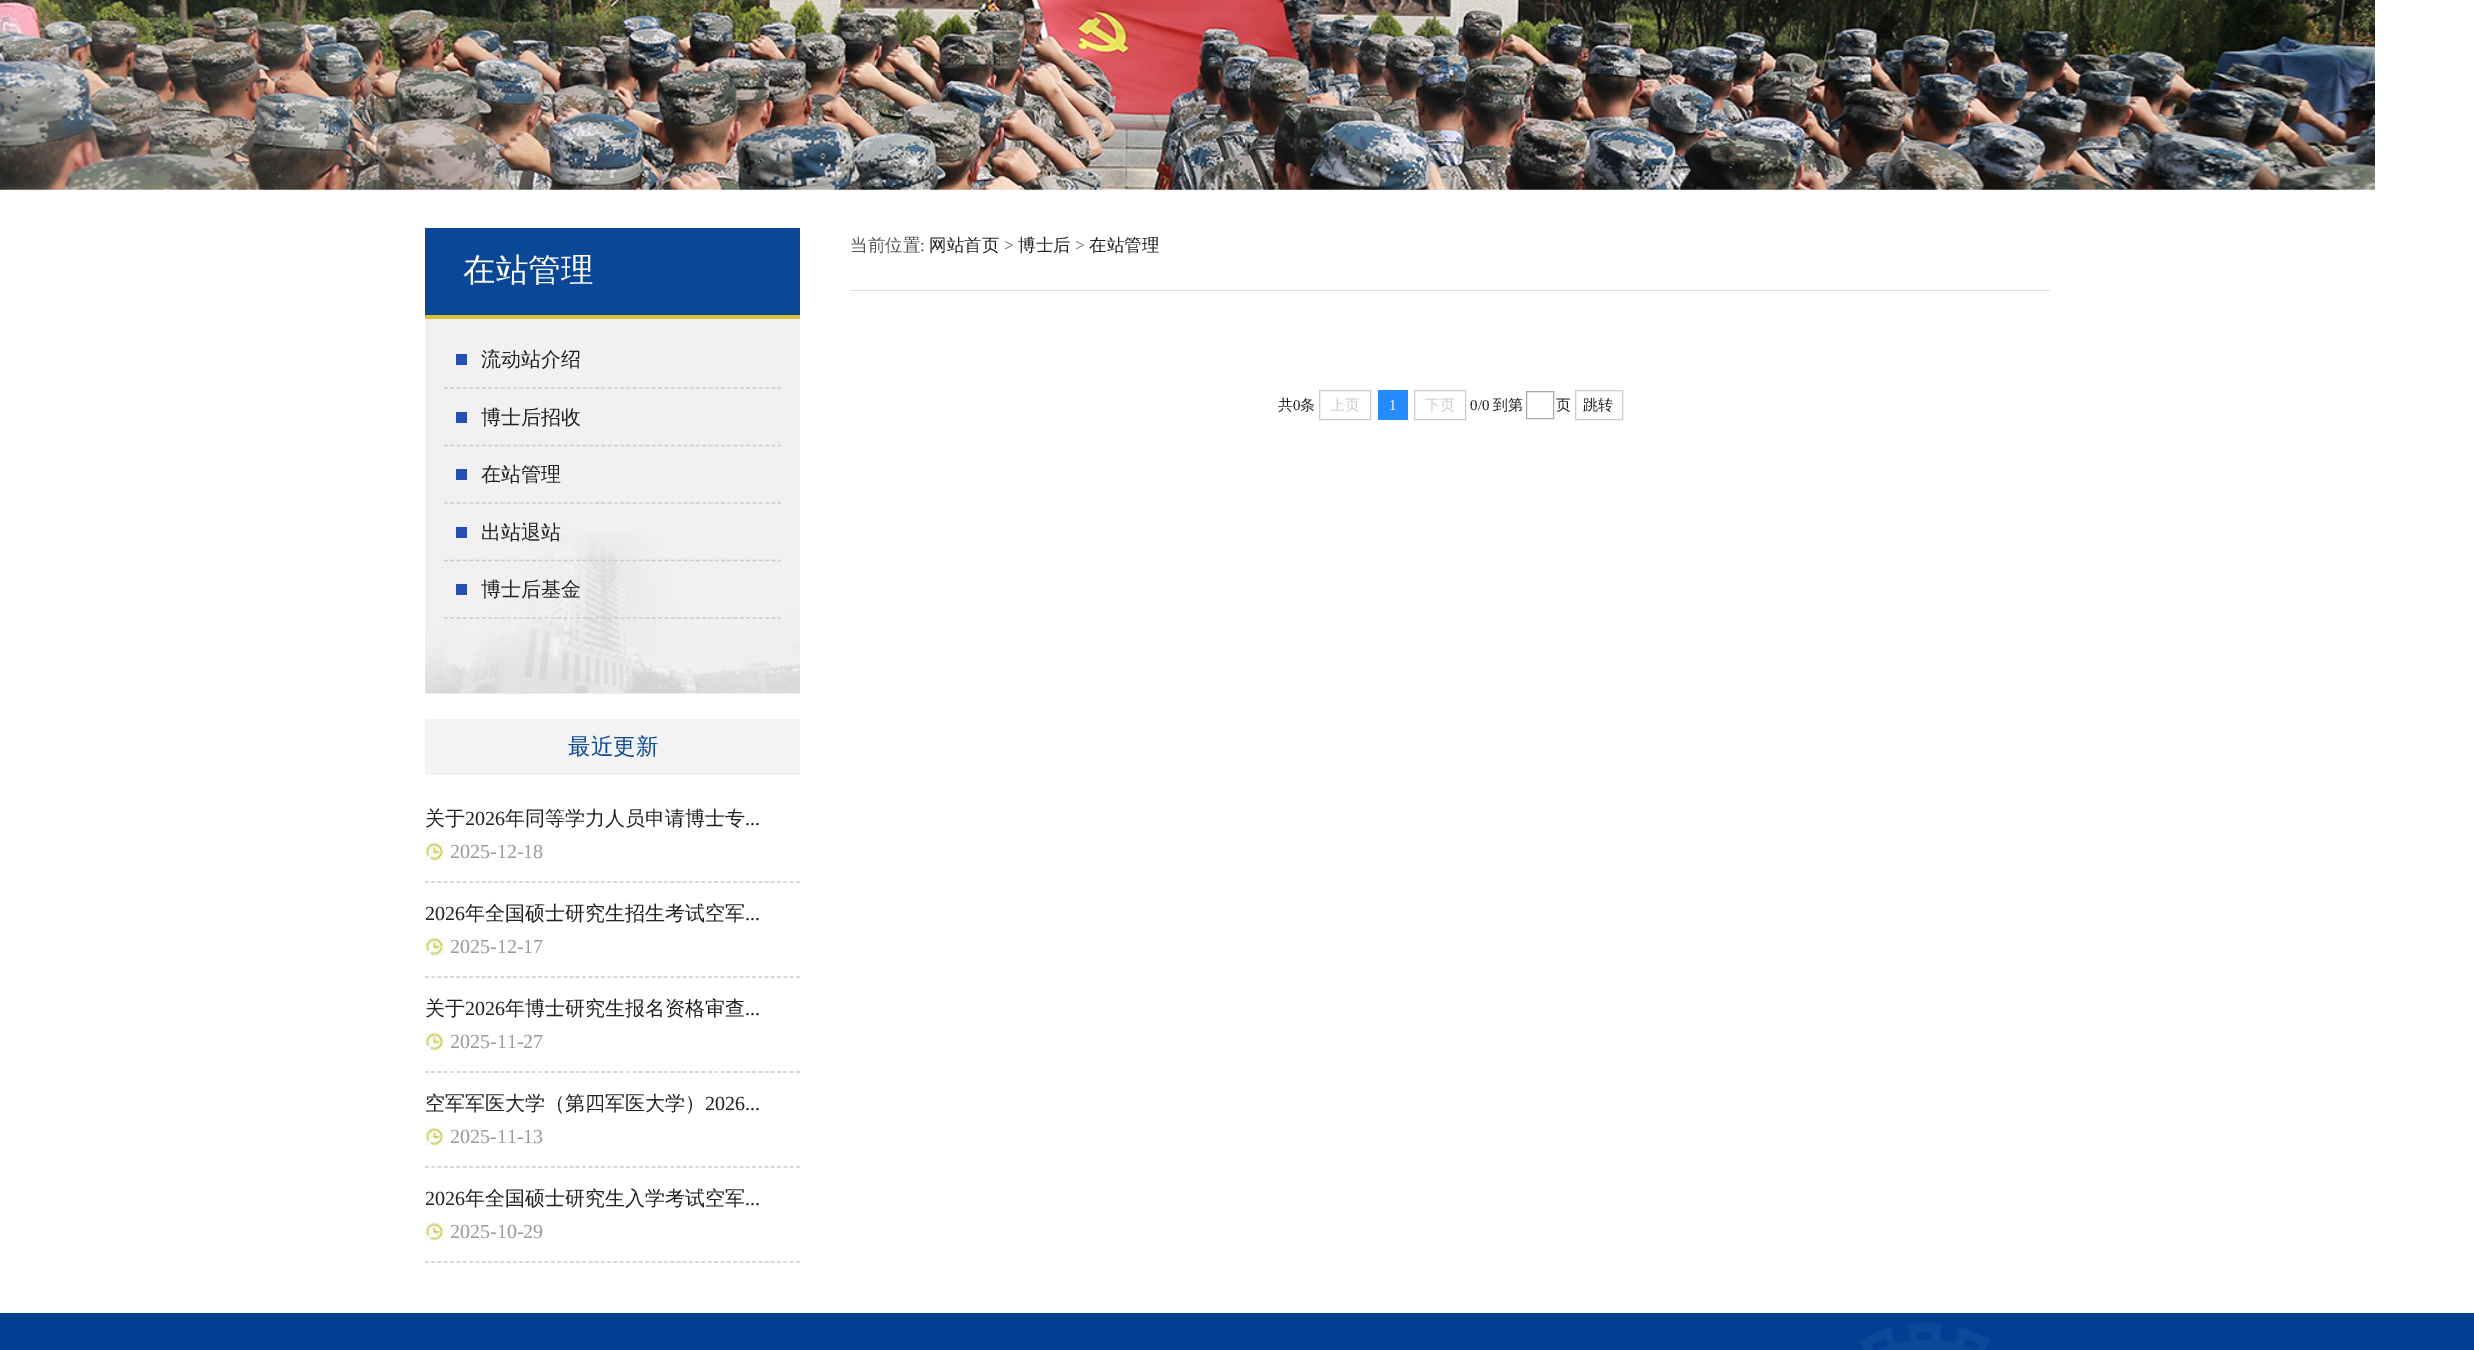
%!PS
<< /PageSize [2474 1350] >> setpagedevice
/m/moveto load def
/l/rlineto load def
/s/stroke load def
/w/setlinewidth load def
/C { dup -16 bitshift 255 div exch dup -8 bitshift 255 and 255 div exch 255 and 255 div setrgbcolor } def
/F { [ exch dup neg 0 0 3 -1 roll 0 0 ] selectfont } def
/T { moveto show } def
/R { rectfill } def
/I { 5 dict begin { /h /w /y /x /name } { exch def } forall
  gsave x y translate w h scale
  w h 8 [w 0 0 h 0 0] name (r) file false 3 colorimage grestore end } def
0 1350 translate 1 -1 scale
4 setmiterlimit
16#FFFFFF C
0 0 2474 1350 R
(1.rgb) 0 0 2375 190 I
16#0A4796 C
425 228 375 87 R
16#DBC033 C
425 315 375 4 R
/WenQuanYiZenHei-Medium 32.5 F
16#FFFFFF C
(在站管理) 463 281 T
16#F2F1F1 C
425 319 375 375 R
(2.rgb) 425 534 375 160 I
16#CCCCCC C
1.2 w
[3.75 2.55] 0 setdash
444 388 m 337 0 l s
16#254FB3 C
456 354 11 11 R
/WenQuanYiZenHei-Medium 20 F
16#222222 C
(流动站介绍) 481 366 T
16#CCCCCC C
444 445.5 m 337 0 l s
16#254FB3 C
456 412 11 11 R
16#222222 C
(博士后招收) 481 424 T
16#CCCCCC C
444 503 m 337 0 l s
16#254FB3 C
456 469 11 11 R
16#222222 C
(在站管理) 481 481 T
16#CCCCCC C
444 560.5 m 337 0 l s
16#254FB3 C
456 527 11 11 R
16#222222 C
(出站退站) 481 539 T
16#CCCCCC C
444 618 m 337 0 l s
16#254FB3 C
456 584 11 11 R
16#222222 C
(博士后基金) 481 596 T
16#F3F3F3 C
425 719 375 56 R
/WenQuanYiZenHei-Medium 22.5 F
16#0A4796 C
(最近更新) 568 754 T
16#CCCCCC C
[3.75 2.54] 0 setdash
425 882 m 375 0 l s
/WenQuanYiZenHei-Medium 20 F
16#222222 C
(关于) 425 825 T
/LiberationSerif-Regular 20 F
(2026) 465 825 T
/WenQuanYiZenHei-Medium 20 F
(年同等学力人员申请博士专) 505 825 T
/LiberationSerif-Regular 20 F
(...) 745 825 T
(3.rgb) 425 842 19 19 I
16#999999 C
(2025-12-18) 450 858 T
16#CCCCCC C
425 977 m 375 0 l s
16#222222 C
(2026) 425 920 T
/WenQuanYiZenHei-Medium 20 F
(年全国硕士研究生招生考试空军) 465 920 T
/LiberationSerif-Regular 20 F
(...) 745 920 T
(3.rgb) 425 937 19 19 I
16#999999 C
(2025-12-17) 450 953 T
16#CCCCCC C
425 1072 m 375 0 l s
/WenQuanYiZenHei-Medium 20 F
16#222222 C
(关于) 425 1015 T
/LiberationSerif-Regular 20 F
(2026) 465 1015 T
/WenQuanYiZenHei-Medium 20 F
(年博士研究生报名资格审查) 505 1015 T
/LiberationSerif-Regular 20 F
(...) 745 1015 T
(3.rgb) 425 1032 19 19 I
16#999999 C
(2025-11-27) 450 1048 T
16#CCCCCC C
425 1167 m 375 0 l s
/WenQuanYiZenHei-Medium 20 F
16#222222 C
(空军军医大学（第四军医大学）) 425 1110 T
/LiberationSerif-Regular 20 F
(2026...) 705 1110 T
(4.rgb) 425 1127 19 19 I
16#999999 C
(2025-11-13) 450 1143 T
16#CCCCCC C
425 1262 m 375 0 l s
16#222222 C
(2026) 425 1205 T
/WenQuanYiZenHei-Medium 20 F
(年全国硕士研究生入学考试空军) 465 1205 T
/LiberationSerif-Regular 20 F
(...) 745 1205 T
(3.rgb) 425 1222 19 19 I
16#999999 C
(2025-10-29) 450 1238 T
16#DCDCDC C
850 290 1200 1 R
/WenQuanYiZenHei-Medium 17.5 F
16#555555 C
(当前位置) 850 251 T
/LiberationSerif-Regular 17.5 F
(:) 920 251 T
/WenQuanYiZenHei-Medium 17.5 F
16#222222 C
(网站首页) 929 251 T
/LiberationSerif-Regular 17.5 F
16#555555 C
(>) 1004 251 T
/WenQuanYiZenHei-Medium 17.5 F
16#222222 C
(博士后) 1018 251 T
/LiberationSerif-Regular 17.5 F
16#555555 C
(>) 1075 251 T
/WenQuanYiZenHei-Medium 17.5 F
16#222222 C
(在站管理) 1089 251 T
/WenQuanYiZenHei-Medium 15 F
(共) 1278 410 T
/LiberationSerif-Regular 15 F
(0) 1293 410 T
/WenQuanYiZenHei-Medium 15 F
(条) 1300 410 T
16#CCCCCC C
1 w
[] 0 setdash
1319.5 390.5 51 29 rectstroke
(上页) 1330 410 T
16#258CFF C
1378 390 30 30 R
/LiberationSerif-Regular 15 F
16#FFFFFF C
(1) 1389 410 T
16#CCCCCC C
1414.5 390.5 51 29 rectstroke
/WenQuanYiZenHei-Medium 15 F
(下页) 1425 410 T
/LiberationSerif-Regular 15 F
16#222222 C
(0/0) 1470 410 T
/WenQuanYiZenHei-Medium 15 F
(到第) 1493 410 T
16#AAAAAA C
1526.5 391.5 27 27 rectstroke
16#222222 C
(页) 1556 410 T
16#CCCCCC C
1575.5 390.5 47 29 rectstroke
16#222222 C
(跳转) 1583 410 T
16#003F91 C
0 1313 2474 37 R
(5.rgb) 1860 1322 131 28 I
showpage
